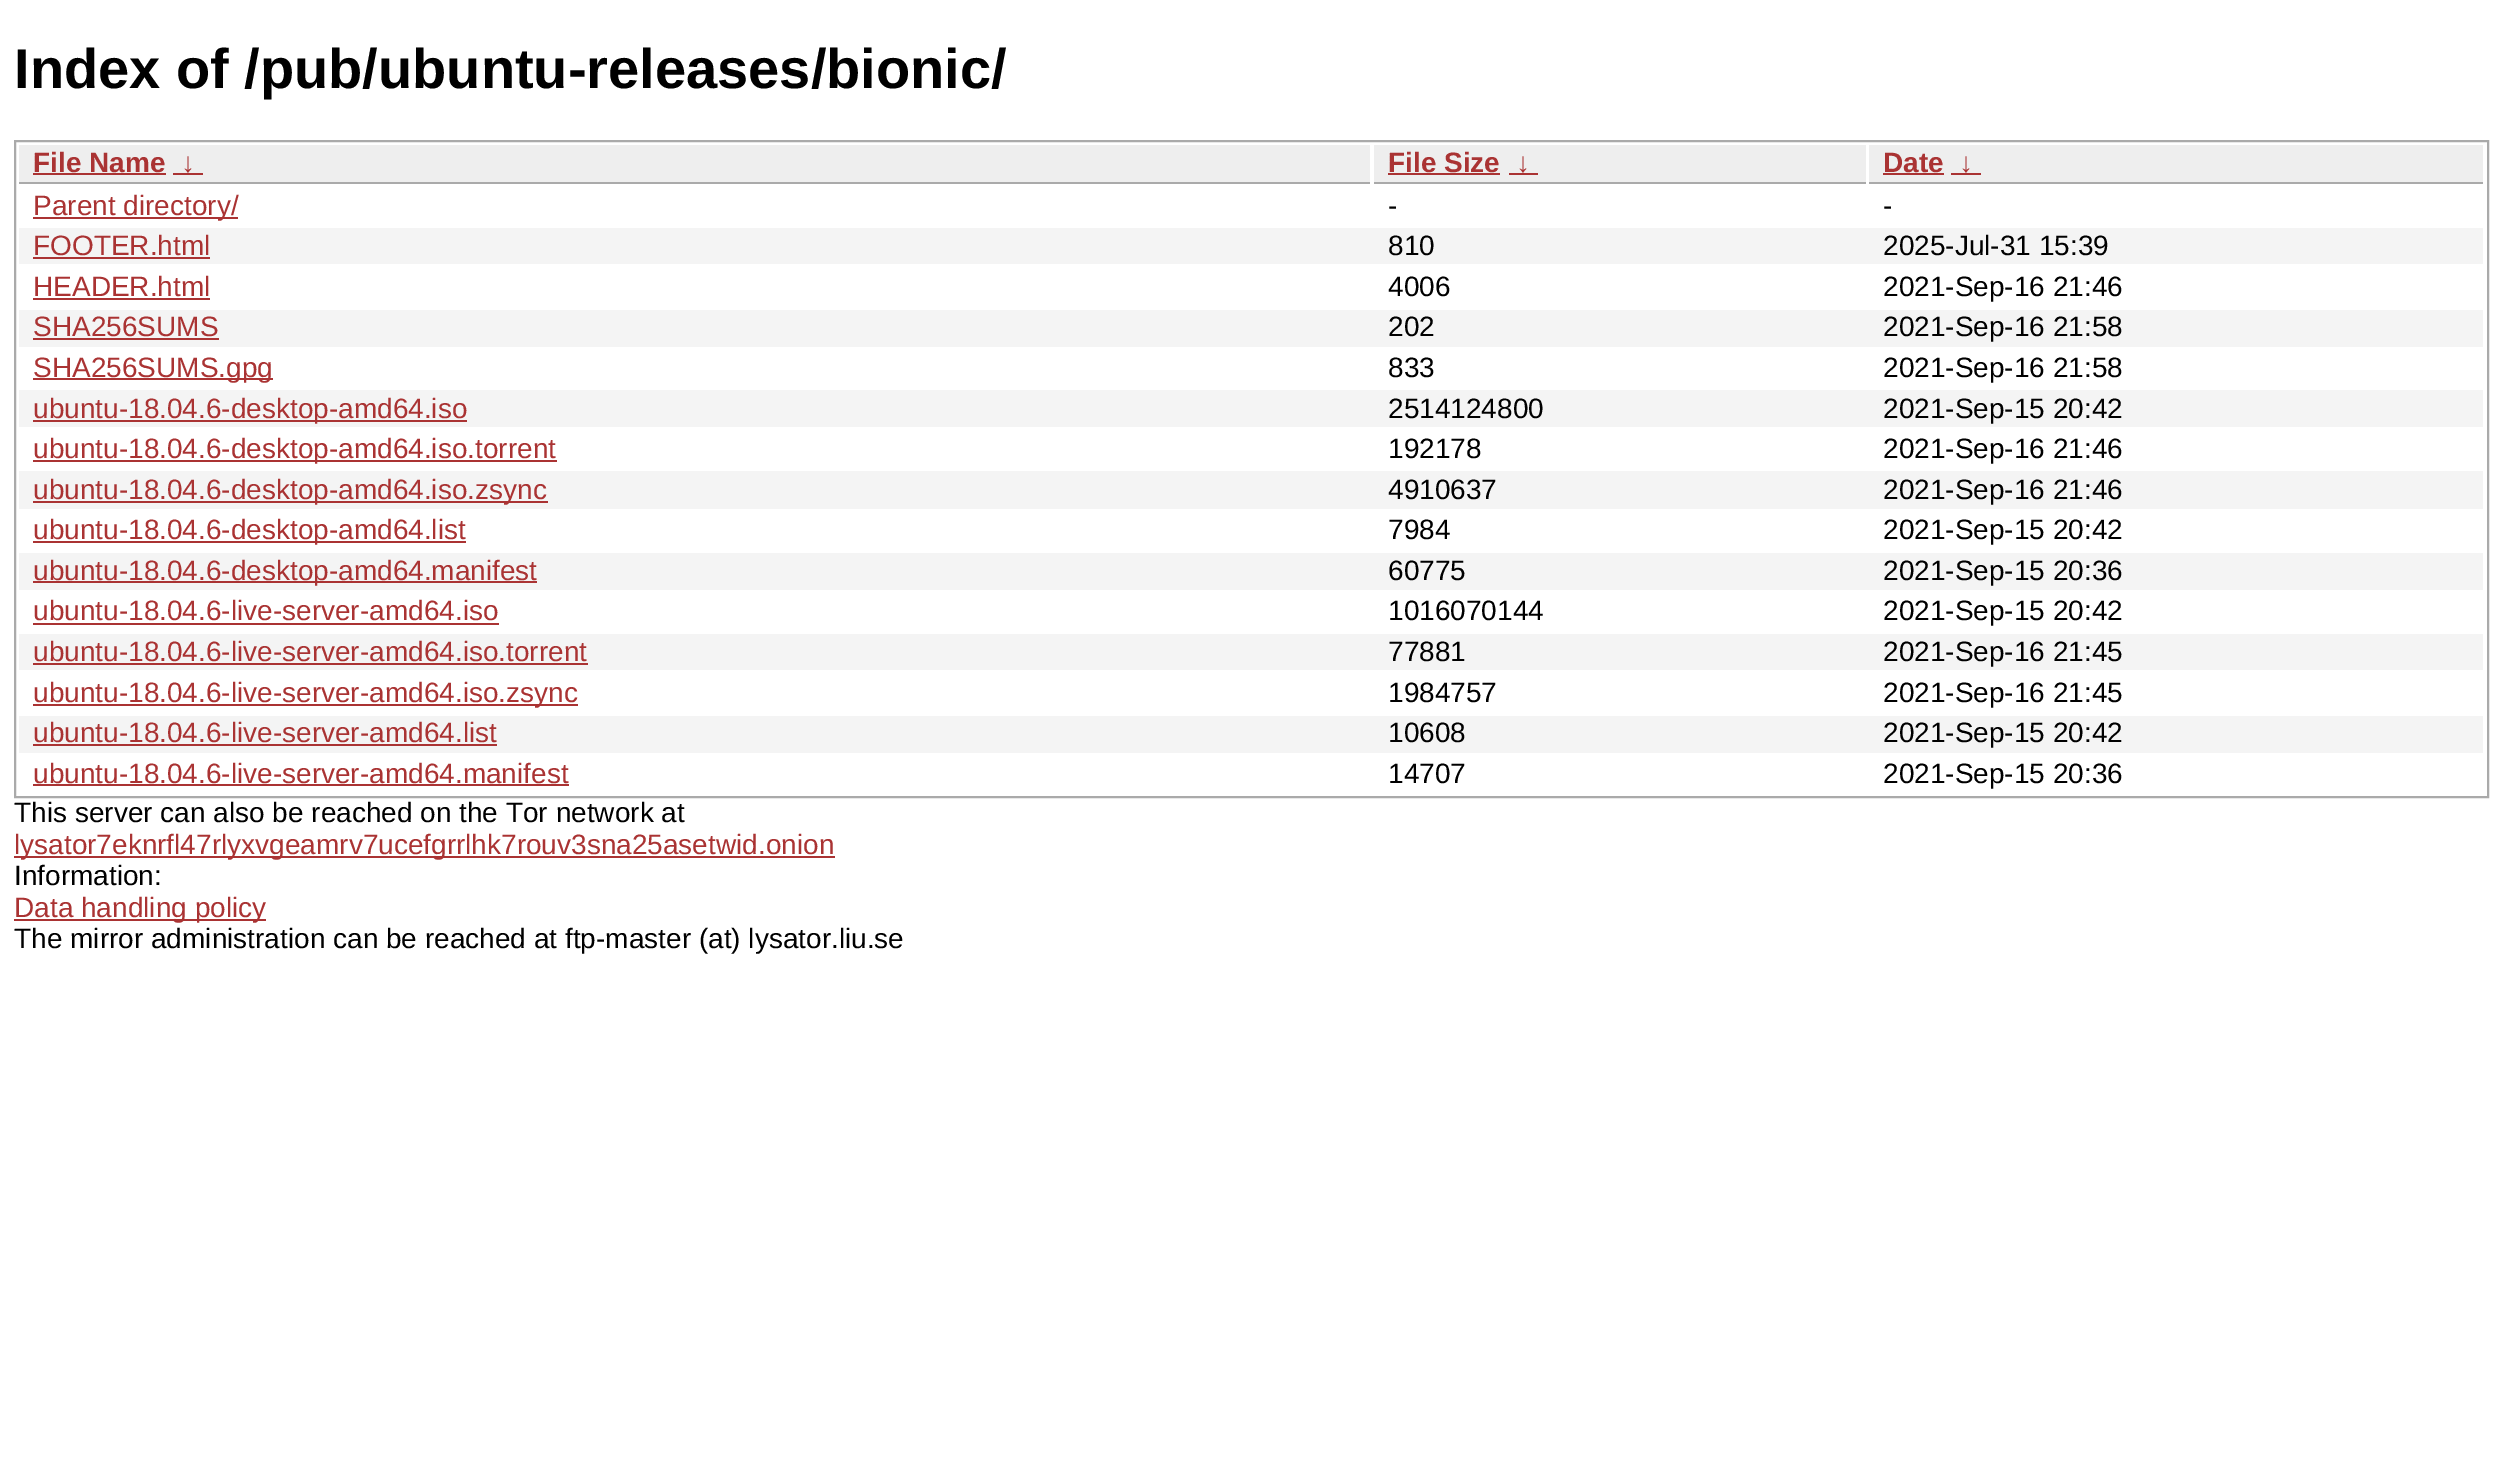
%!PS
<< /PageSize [2502 1468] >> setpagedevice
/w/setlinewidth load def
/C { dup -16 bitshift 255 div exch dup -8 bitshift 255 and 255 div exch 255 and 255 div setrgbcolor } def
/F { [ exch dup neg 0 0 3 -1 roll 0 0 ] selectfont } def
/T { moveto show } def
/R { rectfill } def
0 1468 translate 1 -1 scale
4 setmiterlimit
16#FFFFFF C
0 0 2502 1468 R
/LiberationSans-Bold 56 F
16#000000 C
(Index of /pub/ubuntu-releases/bionic/) 14 88 T
16#AAAAAA C
2 w
15 141 2473 656 rectstroke
16#EEEEEE C
19 145 1351 37 R
16#AAAAAA C
19 182 1351 2 R
/LiberationSans-Bold 28 F
16#AA3333 C
(File Name) 33 172 T
33 173 133 2 R
(↓) 181 172 T
173 173 30 2 R
16#EEEEEE C
1374 145 492 37 R
16#AAAAAA C
1374 182 492 2 R
16#AA3333 C
(File Size) 1388 172 T
1388 173 112 2 R
(↓) 1516 172 T
1509 173 29 2 R
16#EEEEEE C
1869 145 614 37 R
16#AAAAAA C
1869 182 614 2 R
16#AA3333 C
(Date) 1883 172 T
1883 173 61 2 R
(↓) 1959 172 T
1951 173 30 2 R
33 217 205 2 R
/LiberationSans-Regular 28 F
(Parent directory/) 33 215 T
16#000000 C
(-) 1388 215 T
(-) 1883 215 T
16#F4F4F4 C
19 228 2464 36 R
16#AA3333 C
(FOOTER.html) 33 255 T
33 257 177 2 R
16#000000 C
(810) 1388 255 T
(2025-Jul-31 15:39) 1883 255 T
16#AA3333 C
(HEADER.html) 33 296 T
33 298 177 2 R
16#000000 C
(4006) 1388 296 T
(2021-Sep-16 21:46) 1883 296 T
16#F4F4F4 C
19 310 2464 37 R
16#AA3333 C
(SHA256SUMS) 33 336 T
33 338 186 2 R
16#000000 C
(202) 1388 336 T
(2021-Sep-16 21:58) 1883 336 T
16#AA3333 C
33 378 240 2 R
(SHA256SUMS.gpg) 33 377 T
16#000000 C
(833) 1388 377 T
(2021-Sep-16 21:58) 1883 377 T
16#F4F4F4 C
19 390 2464 37 R
16#AA3333 C
33 420 434 2 R
(ubuntu-18.04.6-desktop-amd64.iso) 33 418 T
16#000000 C
(2514124800) 1388 418 T
(2021-Sep-15 20:42) 1883 418 T
16#AA3333 C
33 460 524 2 R
(ubuntu-18.04.6-desktop-amd64.iso.torrent) 33 458 T
16#000000 C
(192178) 1388 458 T
(2021-Sep-16 21:46) 1883 458 T
16#F4F4F4 C
19 471 2464 38 R
16#AA3333 C
33 501 515 2 R
(ubuntu-18.04.6-desktop-amd64.iso.zsync) 33 499 T
16#000000 C
(4910637) 1388 499 T
(2021-Sep-16 21:46) 1883 499 T
16#AA3333 C
33 541 433 2 R
(ubuntu-18.04.6-desktop-amd64.list) 33 539 T
16#000000 C
(7984) 1388 539 T
(2021-Sep-15 20:42) 1883 539 T
16#F4F4F4 C
19 553 2464 37 R
16#AA3333 C
33 581 504 2 R
(ubuntu-18.04.6-desktop-amd64.manifest) 33 580 T
16#000000 C
(60775) 1388 580 T
(2021-Sep-15 20:36) 1883 580 T
16#AA3333 C
(ubuntu-18.04.6-live-server-amd64.iso) 33 620 T
33 623 466 2 R
16#000000 C
(1016070144) 1388 620 T
(2021-Sep-15 20:42) 1883 620 T
16#F4F4F4 C
19 634 2464 36 R
16#AA3333 C
(ubuntu-18.04.6-live-server-amd64.iso.torrent) 33 661 T
33 663 555 2 R
16#000000 C
(77881) 1388 661 T
(2021-Sep-16 21:45) 1883 661 T
16#AA3333 C
33 704 545 2 R
(ubuntu-18.04.6-live-server-amd64.iso.zsync) 33 702 T
16#000000 C
(1984757) 1388 702 T
(2021-Sep-16 21:45) 1883 702 T
16#F4F4F4 C
19 716 2464 37 R
16#AA3333 C
(ubuntu-18.04.6-live-server-amd64.list) 33 742 T
33 744 464 2 R
16#000000 C
(10608) 1388 742 T
(2021-Sep-15 20:42) 1883 742 T
16#AA3333 C
(ubuntu-18.04.6-live-server-amd64.manifest) 33 783 T
33 784 536 2 R
16#000000 C
(14707) 1388 783 T
(2021-Sep-15 20:36) 1883 783 T
(This server can also be reached on the Tor network at) 14 822 T
16#AA3333 C
14 856 821 2 R
(lysator7eknrfl47rlyxvgeamrv7ucefgrrlhk7rouv3sna25asetwid.onion) 14 854 T
16#000000 C
(Information:) 14 885 T
16#AA3333 C
14 919 252 2 R
(Data handling policy) 14 917 T
16#000000 C
(The mirror administration can be reached at ftp-master \(at\) lysator.liu.se) 14 948 T
showpage
